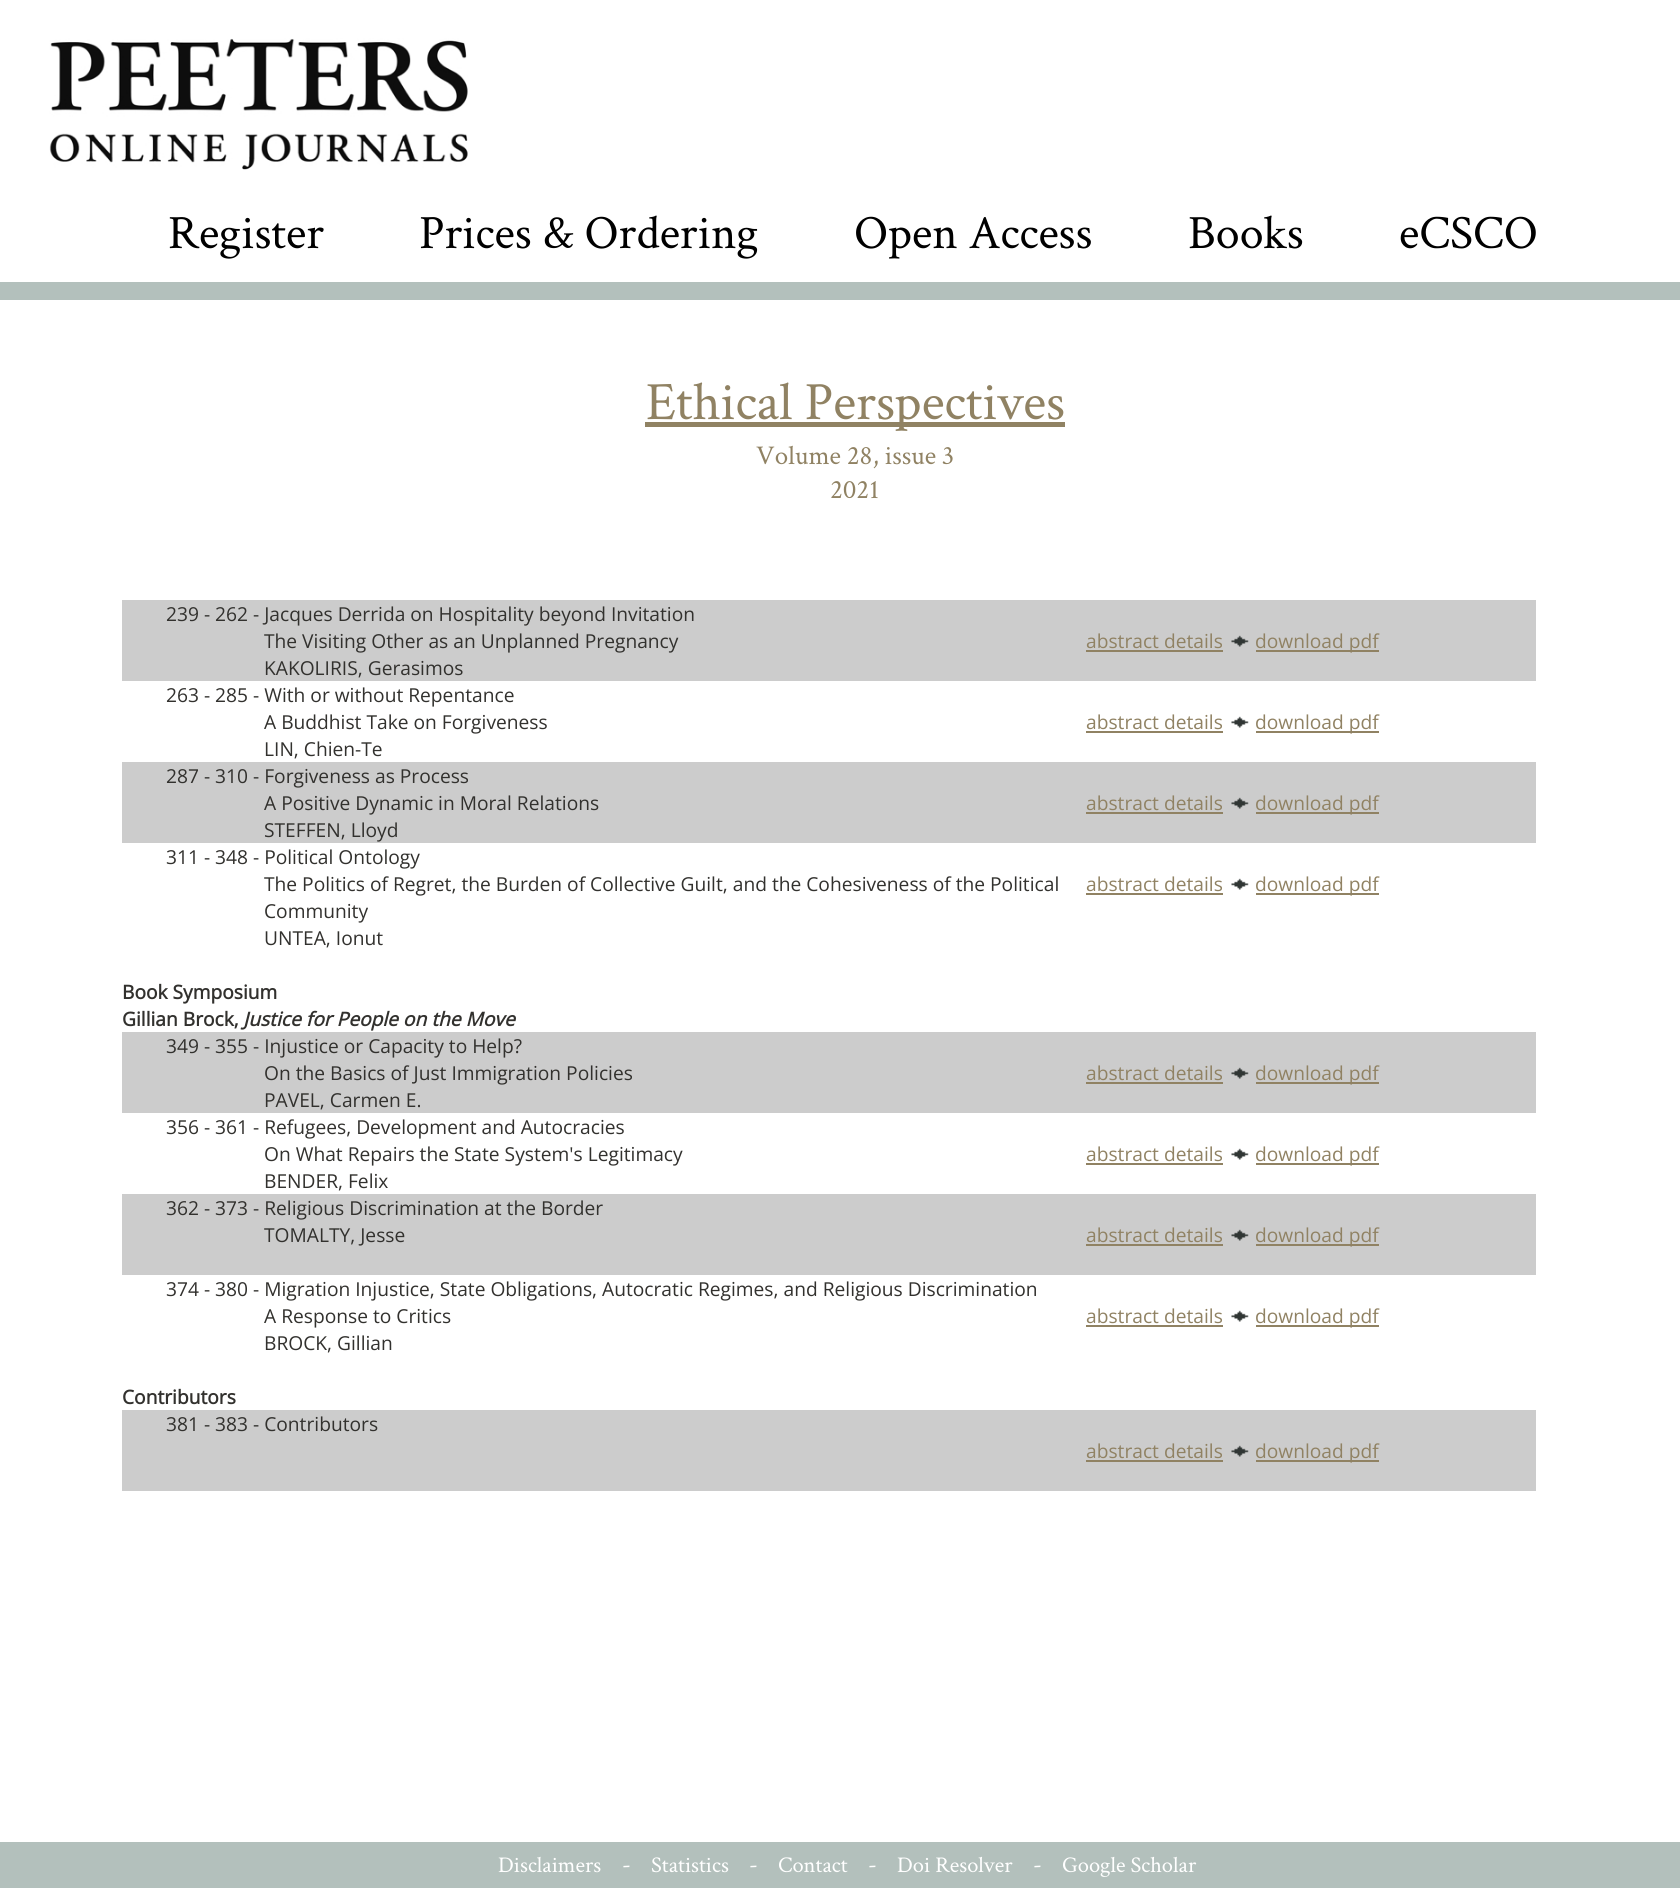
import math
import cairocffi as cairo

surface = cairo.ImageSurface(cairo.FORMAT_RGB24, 1680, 1888)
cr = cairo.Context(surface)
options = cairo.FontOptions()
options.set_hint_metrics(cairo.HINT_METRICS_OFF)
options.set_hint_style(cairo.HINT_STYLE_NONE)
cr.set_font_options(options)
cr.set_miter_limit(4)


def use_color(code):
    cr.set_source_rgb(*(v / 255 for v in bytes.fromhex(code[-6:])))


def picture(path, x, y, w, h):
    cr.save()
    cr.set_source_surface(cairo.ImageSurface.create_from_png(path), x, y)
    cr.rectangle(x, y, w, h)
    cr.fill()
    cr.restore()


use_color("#ffffff")
cr.paint()
picture("img1.png", 49, 38, 419, 132)
cr.select_font_face("Crimson Text")
cr.set_font_size(48)
use_color("#000000")
cr.move_to(168, 248)
cr.show_text("Register")
cr.move_to(419, 248)
cr.show_text("Prices & Ordering")
cr.move_to(854, 248)
cr.show_text("Open Access")
cr.move_to(1188, 248)
cr.show_text("Books")
cr.move_to(1399, 248)
cr.show_text("eCSCO")
use_color("#b3c0bc")
cr.rectangle(0, 282, 1680, 18)
cr.fill()
use_color("#908263")
cr.rectangle(645, 422, 420, 5)
cr.fill()
cr.set_font_size(54)
cr.move_to(646, 419)
cr.show_text("Ethical Perspectives")
cr.set_font_size(27)
cr.move_to(756, 464)
cr.show_text("Volume 28, issue 3")
cr.move_to(830, 498)
cr.show_text("2021")
use_color("#cccccc")
cr.rectangle(122, 600, 1414, 81)
cr.fill()
cr.select_font_face("Open Sans")
cr.set_font_size(19.2)
use_color("#32312e")
cr.move_to(166, 621)
cr.show_text("239 - 262 - Jacques Derrida on Hospitality beyond Invitation")
cr.move_to(264, 648)
cr.show_text("The Visiting Other as an Unplanned Pregnancy")
cr.move_to(264, 675)
cr.show_text("KAKOLIRIS, Gerasimos")
use_color("#908263")
cr.move_to(1086, 648)
cr.show_text("abstract details")
cr.rectangle(1086, 650, 137, 2)
cr.fill()
picture("img2.png", 1231, 635, 18, 12)
cr.rectangle(1256, 650, 123, 2)
cr.fill()
cr.move_to(1255, 648)
cr.show_text("download pdf")
use_color("#32312e")
cr.move_to(166, 702)
cr.show_text("263 - 285 - With or without Repentance")
cr.move_to(264, 729)
cr.show_text("A Buddhist Take on Forgiveness")
cr.move_to(264, 756)
cr.show_text("LIN, Chien-Te")
use_color("#908263")
cr.move_to(1086, 729)
cr.show_text("abstract details")
cr.rectangle(1086, 731, 137, 2)
cr.fill()
picture("img3.png", 1231, 716, 18, 12)
cr.rectangle(1256, 731, 123, 2)
cr.fill()
cr.move_to(1255, 729)
cr.show_text("download pdf")
use_color("#cccccc")
cr.rectangle(122, 762, 1414, 81)
cr.fill()
use_color("#32312e")
cr.move_to(166, 783)
cr.show_text("287 - 310 - Forgiveness as Process")
cr.move_to(264, 810)
cr.show_text("A Positive Dynamic in Moral Relations")
cr.move_to(264, 837)
cr.show_text("STEFFEN, Lloyd")
use_color("#908263")
cr.move_to(1086, 810)
cr.show_text("abstract details")
cr.rectangle(1086, 812, 137, 2)
cr.fill()
picture("img2.png", 1231, 797, 18, 12)
cr.rectangle(1256, 812, 123, 2)
cr.fill()
cr.move_to(1255, 810)
cr.show_text("download pdf")
use_color("#32312e")
cr.move_to(166, 864)
cr.show_text("311 - 348 - Political Ontology")
cr.move_to(264, 891)
cr.show_text("The Politics of Regret, the Burden of Collective Guilt, and the Cohesiveness of the Political")
cr.move_to(264, 918)
cr.show_text("Community")
cr.move_to(264, 945)
cr.show_text("UNTEA, Ionut")
use_color("#908263")
cr.move_to(1086, 891)
cr.show_text("abstract details")
cr.rectangle(1086, 893, 137, 2)
cr.fill()
picture("img3.png", 1231, 878, 18, 12)
cr.rectangle(1256, 893, 123, 2)
cr.fill()
cr.move_to(1255, 891)
cr.show_text("download pdf")
cr.select_font_face("Open Sans", cairo.FONT_SLANT_NORMAL, cairo.FONT_WEIGHT_BOLD)
use_color("#32312e")
cr.move_to(122, 999)
cr.show_text("Book Symposium")
cr.move_to(122, 1026)
cr.show_text("Gillian Brock,")
cr.select_font_face("Open Sans", cairo.FONT_SLANT_ITALIC, cairo.FONT_WEIGHT_BOLD)
cr.move_to(243, 1026)
cr.show_text("Justice for People on the Move")
use_color("#cccccc")
cr.rectangle(122, 1032, 1414, 81)
cr.fill()
cr.select_font_face("Open Sans")
use_color("#32312e")
cr.move_to(166, 1053)
cr.show_text("349 - 355 - Injustice or Capacity to Help?")
cr.move_to(264, 1080)
cr.show_text("On the Basics of Just Immigration Policies")
cr.move_to(264, 1107)
cr.show_text("PAVEL, Carmen E.")
use_color("#908263")
cr.move_to(1086, 1080)
cr.show_text("abstract details")
cr.rectangle(1086, 1082, 137, 2)
cr.fill()
picture("img2.png", 1231, 1067, 18, 12)
cr.rectangle(1256, 1082, 123, 2)
cr.fill()
cr.move_to(1255, 1080)
cr.show_text("download pdf")
use_color("#32312e")
cr.move_to(166, 1134)
cr.show_text("356 - 361 - Refugees, Development and Autocracies")
cr.move_to(264, 1161)
cr.show_text("On What Repairs the State System's Legitimacy")
cr.move_to(264, 1188)
cr.show_text("BENDER, Felix")
use_color("#908263")
cr.move_to(1086, 1161)
cr.show_text("abstract details")
cr.rectangle(1086, 1163, 137, 2)
cr.fill()
picture("img3.png", 1231, 1148, 18, 12)
cr.rectangle(1256, 1163, 123, 2)
cr.fill()
cr.move_to(1255, 1161)
cr.show_text("download pdf")
use_color("#cccccc")
cr.rectangle(122, 1194, 1414, 81)
cr.fill()
use_color("#32312e")
cr.move_to(166, 1215)
cr.show_text("362 - 373 - Religious Discrimination at the Border")
cr.move_to(264, 1242)
cr.show_text("TOMALTY, Jesse")
use_color("#908263")
cr.move_to(1086, 1242)
cr.show_text("abstract details")
cr.rectangle(1086, 1244, 137, 2)
cr.fill()
picture("img2.png", 1231, 1229, 18, 12)
cr.rectangle(1256, 1244, 123, 2)
cr.fill()
cr.move_to(1255, 1242)
cr.show_text("download pdf")
use_color("#32312e")
cr.move_to(166, 1296)
cr.show_text("374 - 380 - Migration Injustice, State Obligations, Autocratic Regimes, and Religious Discrimination")
cr.move_to(264, 1323)
cr.show_text("A Response to Critics")
cr.move_to(264, 1350)
cr.show_text("BROCK, Gillian")
use_color("#908263")
cr.move_to(1086, 1323)
cr.show_text("abstract details")
cr.rectangle(1086, 1325, 137, 2)
cr.fill()
picture("img3.png", 1231, 1310, 18, 12)
cr.rectangle(1256, 1325, 123, 2)
cr.fill()
cr.move_to(1255, 1323)
cr.show_text("download pdf")
cr.select_font_face("Open Sans", cairo.FONT_SLANT_NORMAL, cairo.FONT_WEIGHT_BOLD)
use_color("#32312e")
cr.move_to(122, 1404)
cr.show_text("Contributors")
use_color("#cccccc")
cr.rectangle(122, 1410, 1414, 81)
cr.fill()
cr.select_font_face("Open Sans")
use_color("#32312e")
cr.move_to(166, 1431)
cr.show_text("381 - 383 - Contributors")
use_color("#908263")
cr.move_to(1086, 1458)
cr.show_text("abstract details")
cr.rectangle(1086, 1460, 137, 2)
cr.fill()
picture("img2.png", 1231, 1445, 18, 12)
cr.rectangle(1256, 1460, 123, 2)
cr.fill()
cr.move_to(1255, 1458)
cr.show_text("download pdf")
use_color("#b3c0bc")
cr.rectangle(0, 1842, 1680, 46)
cr.fill()
cr.select_font_face("Crimson Text")
cr.set_font_size(22.5)
use_color("#ffffff")
cr.move_to(498, 1872)
cr.show_text("Disclaimers")
cr.set_font_size(24)
cr.move_to(622, 1872)
cr.show_text("-")
cr.set_font_size(22.5)
cr.move_to(651, 1872)
cr.show_text("Statistics")
cr.set_font_size(24)
cr.move_to(749, 1872)
cr.show_text("-")
cr.set_font_size(22.5)
cr.move_to(778, 1872)
cr.show_text("Contact")
cr.set_font_size(24)
cr.move_to(868, 1872)
cr.show_text("-")
cr.set_font_size(22.5)
cr.move_to(897, 1872)
cr.show_text("Doi Resolver")
cr.set_font_size(24)
cr.move_to(1033, 1872)
cr.show_text("-")
cr.set_font_size(22.5)
cr.move_to(1062, 1872)
cr.show_text("Google Scholar")
surface.write_to_png("result.png")
